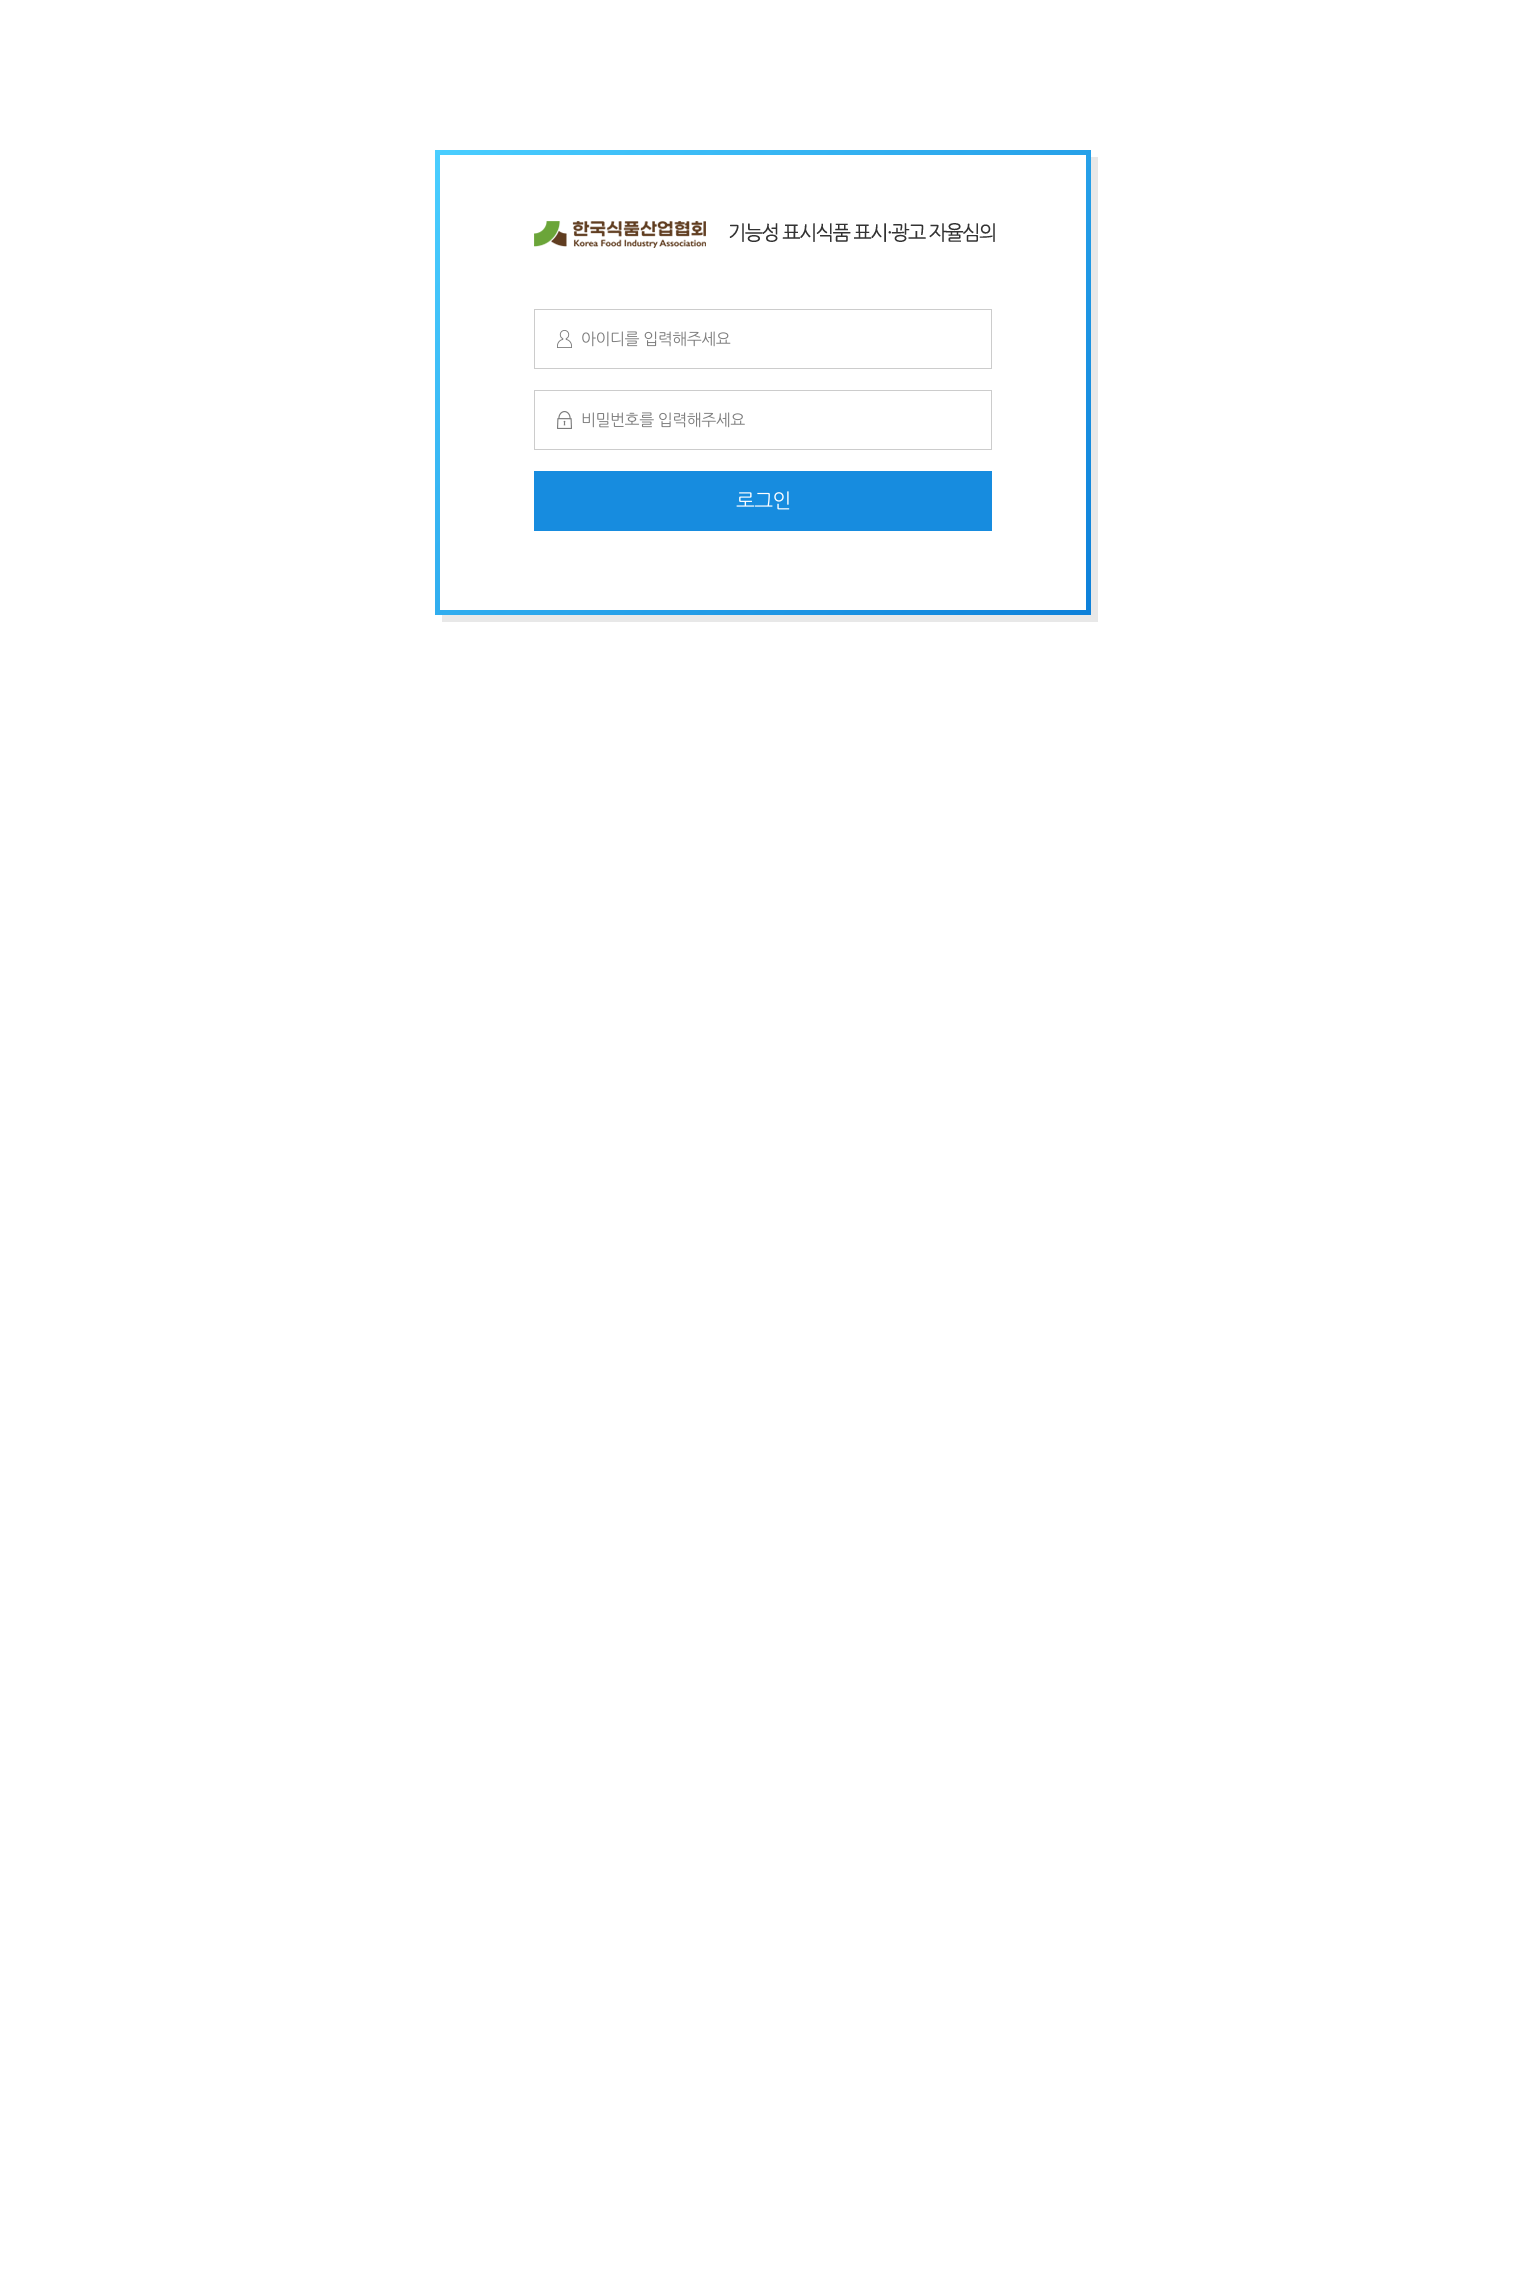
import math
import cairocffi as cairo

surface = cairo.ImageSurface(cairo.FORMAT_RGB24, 1526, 2289)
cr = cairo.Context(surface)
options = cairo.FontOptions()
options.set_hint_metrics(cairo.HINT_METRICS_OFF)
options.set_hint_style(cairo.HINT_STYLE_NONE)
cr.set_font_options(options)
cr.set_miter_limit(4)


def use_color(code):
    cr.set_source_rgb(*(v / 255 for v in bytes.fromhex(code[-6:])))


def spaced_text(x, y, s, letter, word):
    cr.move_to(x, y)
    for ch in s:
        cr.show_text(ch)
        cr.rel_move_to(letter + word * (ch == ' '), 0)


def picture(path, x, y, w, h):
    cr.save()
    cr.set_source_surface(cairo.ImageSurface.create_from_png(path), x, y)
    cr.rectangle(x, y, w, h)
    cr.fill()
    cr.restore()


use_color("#ffffff")
cr.paint()
use_color("#e8e8e8")
cr.rectangle(442, 157, 656, 465)
cr.fill()
gradient = cairo.LinearGradient(1043, 663, 483, 102)
gradient.add_color_stop_rgba(0, 0.051, 0.502, 0.851, 1)
gradient.add_color_stop_rgba(1, 0.29, 0.808, 1, 1)
cr.set_source(gradient)
cr.rectangle(435, 150, 656, 465)
cr.fill()
use_color("#ffffff")
cr.rectangle(440, 155, 646, 455)
cr.fill()
picture("img1.png", 534, 221, 461, 27)
picture("img2.png", 557, 330, 15, 18)
cr.rectangle(534.5, 309.5, 457, 59)
use_color("#cccccc")
cr.set_line_width(1)
cr.stroke()
cr.select_font_face("NanumGothic")
cr.set_font_size(16)
use_color("#7c7c7c")
spaced_text(581, 344, "아이디를 입력해주세요", -0.5, 0)
picture("img3.png", 557, 411, 15, 18)
cr.rectangle(534.5, 390.5, 457, 59)
use_color("#cccccc")
cr.stroke()
use_color("#7c7c7c")
spaced_text(581, 425, "비밀번호를 입력해주세요", -0.5, 0)
use_color("#178cdf")
cr.rectangle(534, 471, 458, 60)
cr.fill()
cr.set_font_size(20)
use_color("#ffffff")
spaced_text(736, 507, "로그인", -0.5, 0)
surface.write_to_png("result.png")
